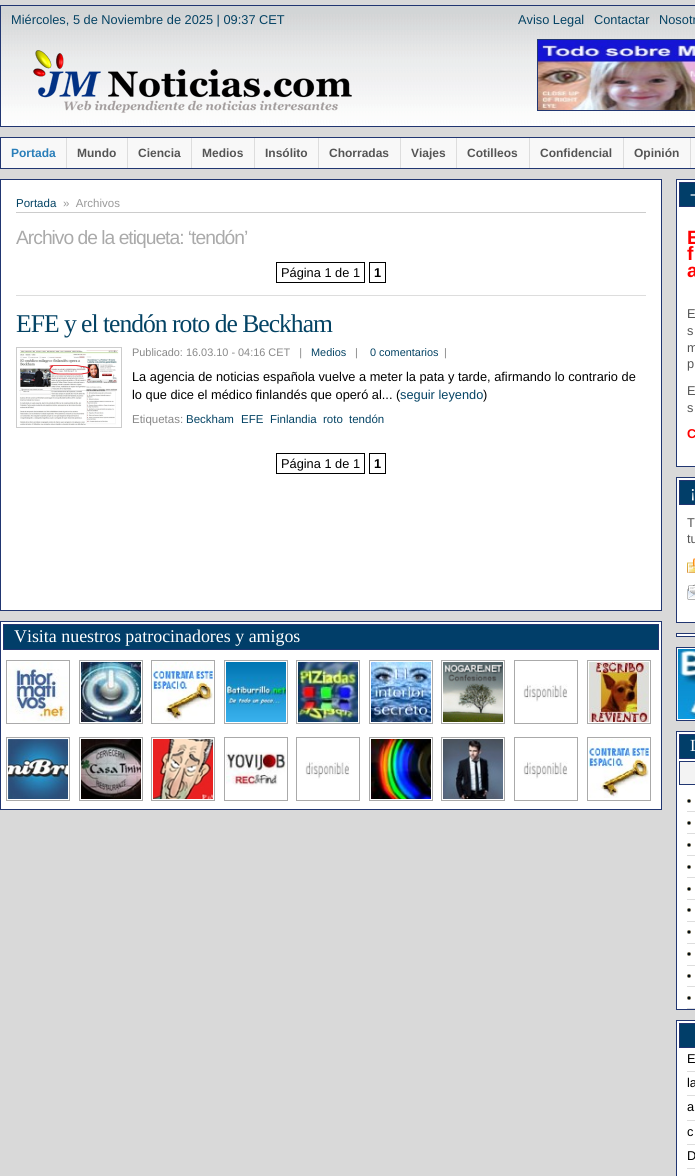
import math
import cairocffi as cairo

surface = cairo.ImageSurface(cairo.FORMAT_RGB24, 695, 1176)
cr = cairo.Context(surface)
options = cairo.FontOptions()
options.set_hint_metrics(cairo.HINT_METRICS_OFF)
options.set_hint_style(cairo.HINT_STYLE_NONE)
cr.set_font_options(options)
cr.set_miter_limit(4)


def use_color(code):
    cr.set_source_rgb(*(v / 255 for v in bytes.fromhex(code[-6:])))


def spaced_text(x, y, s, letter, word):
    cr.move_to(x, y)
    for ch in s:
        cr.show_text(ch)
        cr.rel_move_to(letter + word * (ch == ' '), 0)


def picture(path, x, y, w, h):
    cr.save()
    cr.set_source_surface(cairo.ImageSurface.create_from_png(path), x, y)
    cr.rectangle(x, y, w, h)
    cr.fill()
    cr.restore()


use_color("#d9d9d9")
cr.paint()
picture("img1.png", 1, 6, 694, 120)
cr.rectangle(0.5, 5.5, 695, 121)
use_color("#213671")
cr.set_line_width(1)
cr.stroke()
cr.select_font_face("Liberation Sans")
cr.set_font_size(12.8)
use_color("#044364")
cr.move_to(11, 24)
cr.show_text("Miércoles, 5 de Noviembre de 2025 | 09:37 CET")
cr.move_to(518, 24)
cr.show_text("Aviso Legal")
cr.move_to(594, 24)
cr.show_text("Contactar")
cr.move_to(659, 24)
cr.show_text("Nosotr")
picture("img2.png", 33, 50, 319, 63)
cr.rectangle(537.5, 39.5, 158, 71)
use_color("#213671")
cr.stroke()
picture("img3.png", 538, 40, 157, 70)
use_color("#f8f8f8")
cr.rectangle(0.5, 137.5, 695, 31)
cr.fill_preserve()
use_color("#213671")
cr.stroke()
use_color("#dddddd")
cr.rectangle(66, 138, 1, 30)
cr.fill()
cr.select_font_face("Liberation Sans", cairo.FONT_SLANT_NORMAL, cairo.FONT_WEIGHT_BOLD)
cr.set_font_size(12)
use_color("#297eb9")
cr.move_to(11, 157)
cr.show_text("Portada")
use_color("#dddddd")
cr.rectangle(127, 138, 1, 30)
cr.fill()
use_color("#555555")
cr.move_to(77, 157)
cr.show_text("Mundo")
use_color("#dddddd")
cr.rectangle(191, 138, 1, 30)
cr.fill()
use_color("#555555")
cr.move_to(138, 157)
cr.show_text("Ciencia")
use_color("#dddddd")
cr.rectangle(254, 138, 1, 30)
cr.fill()
use_color("#555555")
cr.move_to(202, 157)
cr.show_text("Medios")
use_color("#dddddd")
cr.rectangle(318, 138, 1, 30)
cr.fill()
use_color("#555555")
cr.move_to(265, 157)
cr.show_text("Insólito")
use_color("#dddddd")
cr.rectangle(400, 138, 1, 30)
cr.fill()
use_color("#555555")
cr.move_to(329, 157)
cr.show_text("Chorradas")
use_color("#dddddd")
cr.rectangle(456, 138, 1, 30)
cr.fill()
use_color("#555555")
cr.move_to(411, 157)
cr.show_text("Viajes")
use_color("#dddddd")
cr.rectangle(529, 138, 1, 30)
cr.fill()
use_color("#555555")
cr.move_to(467, 157)
cr.show_text("Cotilleos")
use_color("#dddddd")
cr.rectangle(623, 138, 1, 30)
cr.fill()
use_color("#555555")
cr.move_to(540, 157)
cr.show_text("Confidencial")
use_color("#dddddd")
cr.rectangle(690, 138, 1, 30)
cr.fill()
use_color("#555555")
cr.move_to(634, 157)
cr.show_text("Opinión")
use_color("#ffffff")
cr.rectangle(0.5, 179.5, 661, 431)
cr.fill_preserve()
use_color("#213671")
cr.stroke()
use_color("#cccccc")
cr.rectangle(16, 212, 630, 1)
cr.fill()
cr.select_font_face("Liberation Sans")
cr.set_font_size(11.5)
use_color("#044364")
cr.move_to(16, 207)
cr.show_text("Portada")
use_color("#999999")
cr.move_to(63, 207)
cr.show_text("»  Archivos")
cr.set_font_size(19.25)
use_color("#aaaaaa")
spaced_text(16, 244, "Archivo de la etiqueta: ‘tendón’", -1, 0)
cr.rectangle(276.5, 262.5, 88, 20)
use_color("#000000")
cr.stroke()
cr.set_font_size(12.8)
cr.move_to(281, 277)
cr.show_text("Página 1 de 1")
cr.rectangle(369.5, 262.5, 16, 20)
cr.stroke()
cr.select_font_face("Liberation Sans", cairo.FONT_SLANT_NORMAL, cairo.FONT_WEIGHT_BOLD)
cr.move_to(374, 277)
cr.show_text("1")
use_color("#dddddd")
cr.rectangle(16, 295, 630, 1)
cr.fill()
cr.select_font_face("Liberation Serif")
cr.set_font_size(25.6)
use_color("#044364")
spaced_text(16, 332, "EFE y el tendón roto de Beckham", -1, 0)
cr.rectangle(16.5, 347.5, 105, 80)
use_color("#cccccc")
cr.stroke()
picture("img4.png", 19, 350, 100, 75)
cr.select_font_face("Liberation Sans")
cr.set_font_size(10.9)
use_color("#888888")
cr.move_to(132, 356)
cr.show_text("Publicado: 16.03.10 - 04:16 CET   |")
use_color("#044364")
cr.move_to(311, 356)
cr.show_text("Medios")
use_color("#888888")
cr.move_to(355, 356)
cr.show_text("|")
use_color("#044364")
cr.move_to(370, 356)
cr.show_text("0 comentarios")
use_color("#888888")
cr.move_to(444, 356)
cr.show_text("|")
cr.set_font_size(12.8)
use_color("#000000")
cr.move_to(132, 381)
cr.show_text("La agencia de noticias española vuelve a meter la pata y tarde, afirmando lo contrario de")
cr.move_to(132, 399)
cr.show_text("lo que dice el médico finlandés que operó al... (")
use_color("#044364")
cr.move_to(400, 399)
cr.show_text("seguir leyendo")
use_color("#000000")
cr.move_to(483, 399)
cr.show_text(")")
cr.set_font_size(11.5)
use_color("#888888")
cr.move_to(132, 423)
cr.show_text("Etiquetas:")
use_color("#044364")
cr.move_to(186, 423)
cr.show_text("Beckham")
cr.move_to(241, 423)
cr.show_text("EFE")
cr.move_to(270, 423)
cr.show_text("Finlandia")
cr.move_to(323, 423)
cr.show_text("roto")
cr.move_to(349, 423)
cr.show_text("tendón")
cr.rectangle(276.5, 453.5, 88, 20)
use_color("#000000")
cr.stroke()
cr.set_font_size(12.8)
cr.move_to(281, 468)
cr.show_text("Página 1 de 1")
cr.rectangle(369.5, 453.5, 16, 20)
cr.stroke()
cr.select_font_face("Liberation Sans", cairo.FONT_SLANT_NORMAL, cairo.FONT_WEIGHT_BOLD)
cr.move_to(374, 468)
cr.show_text("1")
use_color("#ffffff")
cr.rectangle(0.5, 621.5, 661, 188)
cr.fill_preserve()
use_color("#213671")
cr.stroke()
use_color("#013e69")
cr.rectangle(3.5, 624.5, 655, 25)
cr.fill_preserve()
use_color("#213671")
cr.stroke()
cr.select_font_face("Liberation Serif")
cr.set_font_size(17.9)
use_color("#ffffff")
cr.move_to(14, 642)
cr.show_text("Visita nuestros patrocinadores y amigos")
cr.rectangle(6.5, 660.5, 63, 63)
use_color("#aaaaaa")
cr.stroke()
cr.rectangle(79.5, 660.5, 63, 63)
cr.stroke()
cr.rectangle(151.5, 660.5, 63, 63)
cr.stroke()
cr.rectangle(224.5, 660.5, 63, 63)
cr.stroke()
cr.rectangle(296.5, 660.5, 63, 63)
cr.stroke()
cr.rectangle(369.5, 660.5, 63, 63)
cr.stroke()
cr.rectangle(441.5, 660.5, 63, 63)
cr.stroke()
cr.rectangle(514.5, 660.5, 63, 63)
cr.stroke()
cr.rectangle(587.5, 660.5, 63, 63)
cr.stroke()
picture("img5.png", 8, 662, 60, 60)
picture("img6.png", 81, 662, 60, 60)
picture("img7.png", 153, 662, 60, 59)
picture("img8.png", 226, 662, 60, 60)
picture("img9.png", 298, 662, 60, 60)
picture("img10.png", 371, 662, 60, 60)
picture("img11.png", 443, 662, 60, 60)
picture("img12.png", 523, 684, 45, 18)
picture("img13.png", 589, 662, 60, 60)
cr.rectangle(6.5, 737.5, 63, 63)
cr.stroke()
cr.rectangle(79.5, 737.5, 63, 63)
cr.stroke()
cr.rectangle(151.5, 737.5, 63, 63)
cr.stroke()
cr.rectangle(224.5, 737.5, 63, 63)
cr.stroke()
cr.rectangle(296.5, 737.5, 63, 63)
cr.stroke()
cr.rectangle(369.5, 737.5, 63, 63)
cr.stroke()
cr.rectangle(441.5, 737.5, 63, 63)
cr.stroke()
cr.rectangle(514.5, 737.5, 63, 63)
cr.stroke()
cr.rectangle(587.5, 737.5, 63, 63)
cr.stroke()
picture("img14.png", 8, 739, 60, 60)
picture("img15.png", 81, 739, 60, 60)
picture("img16.png", 153, 739, 60, 60)
picture("img17.png", 226, 752, 60, 35)
picture("img18.png", 305, 761, 45, 18)
picture("img19.png", 371, 739, 60, 60)
picture("img20.png", 443, 739, 60, 60)
picture("img18.png", 523, 761, 45, 18)
picture("img21.png", 589, 739, 60, 59)
use_color("#ffffff")
cr.rectangle(676.5, 179.5, 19, 287)
cr.fill_preserve()
use_color("#213671")
cr.stroke()
use_color("#013e69")
cr.rectangle(679.5, 182.5, 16, 24)
cr.fill_preserve()
use_color("#213671")
cr.stroke()
cr.set_font_size(17)
use_color("#ffffff")
cr.move_to(690, 199)
cr.show_text("-")
cr.select_font_face("Liberation Sans", cairo.FONT_SLANT_NORMAL, cairo.FONT_WEIGHT_BOLD)
cr.set_font_size(19.25)
use_color("#ff0000")
cr.move_to(687, 244)
cr.show_text("E")
cr.move_to(687, 260)
cr.show_text("f")
cr.move_to(687, 277)
cr.show_text("a")
cr.select_font_face("Liberation Sans")
cr.set_font_size(12.8)
use_color("#555555")
cr.move_to(687, 318)
cr.show_text("E")
cr.move_to(687, 335)
cr.show_text("s")
cr.move_to(687, 352)
cr.show_text("m")
cr.move_to(687, 368)
cr.show_text("p")
cr.move_to(687, 395)
cr.show_text("E")
cr.move_to(687, 412)
cr.show_text("s")
cr.select_font_face("Liberation Sans", cairo.FONT_SLANT_NORMAL, cairo.FONT_WEIGHT_BOLD)
use_color("#ff0000")
cr.move_to(687, 438)
cr.show_text("C")
use_color("#ffffff")
cr.rectangle(676.5, 477.5, 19, 145)
cr.fill_preserve()
use_color("#213671")
cr.stroke()
use_color("#013e69")
cr.rectangle(679.5, 480.5, 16, 24)
cr.fill_preserve()
use_color("#213671")
cr.stroke()
cr.select_font_face("Liberation Serif")
cr.set_font_size(17)
use_color("#ffffff")
cr.move_to(690, 497)
cr.show_text("¡")
cr.select_font_face("Liberation Sans")
cr.set_font_size(12.8)
use_color("#555555")
cr.move_to(687, 527)
cr.show_text("T")
cr.move_to(687, 543)
cr.show_text("tu")
picture("img22.png", 687, 558, 8, 15)
picture("img23.png", 687, 584, 8, 16)
use_color("#ffffff")
cr.rectangle(676.5, 633.5, 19, 3)
cr.fill_preserve()
use_color("#213671")
cr.stroke()
use_color("#ffffff")
cr.rectangle(676.5, 647.5, 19, 73)
cr.fill_preserve()
use_color("#213671")
cr.stroke()
picture("img24.png", 678, 649, 17, 70)
use_color("#ffffff")
cr.rectangle(676.5, 731.5, 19, 278)
cr.fill_preserve()
use_color("#213671")
cr.stroke()
use_color("#013e69")
cr.rectangle(679.5, 734.5, 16, 24)
cr.fill_preserve()
use_color("#213671")
cr.stroke()
cr.select_font_face("Liberation Serif")
cr.set_font_size(17)
use_color("#ffffff")
cr.move_to(690, 751)
cr.show_text("L")
use_color("#f3f3f3")
cr.rectangle(679.5, 761.5, 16, 23)
cr.fill_preserve()
use_color("#213671")
cr.stroke()
picture("img25.png", 687, 799, 4, 4)
use_color("#dddddd")
cr.rectangle(687, 811, 8, 1)
cr.fill()
picture("img25.png", 687, 821, 4, 4)
cr.rectangle(687, 833, 8, 1)
cr.fill()
picture("img25.png", 687, 843, 4, 4)
cr.rectangle(687, 855, 8, 1)
cr.fill()
picture("img25.png", 687, 865, 4, 4)
cr.rectangle(687, 877, 8, 1)
cr.fill()
picture("img25.png", 687, 887, 4, 4)
cr.rectangle(687, 899, 8, 1)
cr.fill()
picture("img25.png", 687, 908, 4, 4)
cr.rectangle(687, 921, 8, 1)
cr.fill()
picture("img25.png", 687, 930, 4, 4)
cr.rectangle(687, 943, 8, 1)
cr.fill()
picture("img25.png", 687, 952, 4, 4)
cr.rectangle(687, 965, 8, 1)
cr.fill()
picture("img25.png", 687, 974, 4, 4)
cr.rectangle(687, 986, 8, 1)
cr.fill()
picture("img25.png", 687, 996, 4, 4)
cr.rectangle(687, 1008, 8, 1)
cr.fill()
use_color("#ffffff")
cr.rectangle(676.5, 1020.5, 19, 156)
cr.fill_preserve()
use_color("#213671")
cr.stroke()
use_color("#013e69")
cr.rectangle(679.5, 1023.5, 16, 24)
cr.fill_preserve()
use_color("#213671")
cr.stroke()
use_color("#dddddd")
cr.rectangle(687, 1071, 8, 1)
cr.fill()
cr.select_font_face("Liberation Sans")
cr.set_font_size(12.8)
use_color("#000000")
cr.move_to(687, 1063)
cr.show_text("E")
use_color("#dddddd")
cr.rectangle(687, 1095, 8, 1)
cr.fill()
use_color("#000000")
cr.move_to(687, 1087)
cr.show_text("la")
use_color("#dddddd")
cr.rectangle(687, 1120, 8, 1)
cr.fill()
use_color("#000000")
cr.move_to(687, 1111)
cr.show_text("a")
use_color("#dddddd")
cr.rectangle(687, 1144, 8, 1)
cr.fill()
use_color("#000000")
cr.move_to(687, 1136)
cr.show_text("c")
use_color("#dddddd")
cr.rectangle(687, 1168, 8, 1)
cr.fill()
use_color("#000000")
cr.move_to(687, 1160)
cr.show_text("D")
surface.write_to_png("result.png")
